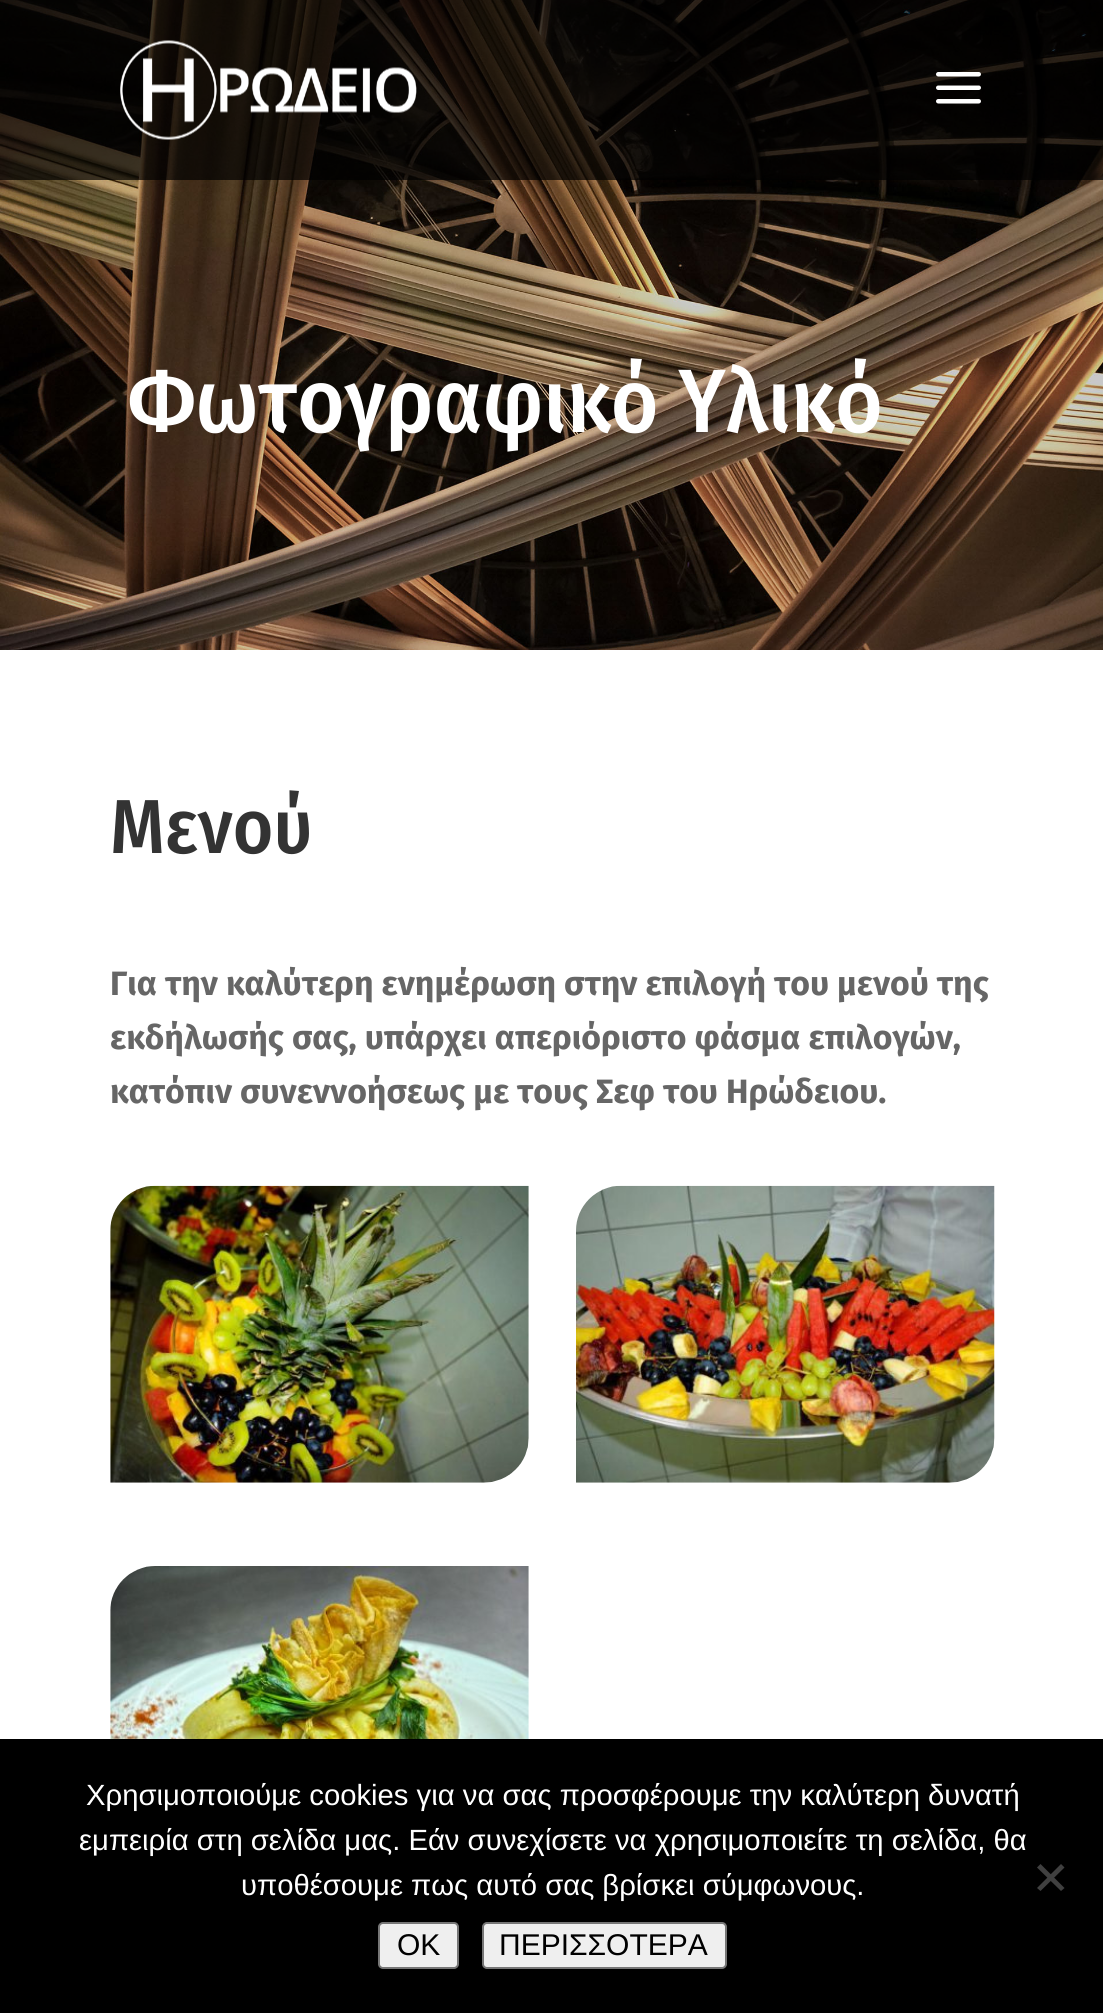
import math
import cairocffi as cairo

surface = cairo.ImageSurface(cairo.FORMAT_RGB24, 1103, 2013)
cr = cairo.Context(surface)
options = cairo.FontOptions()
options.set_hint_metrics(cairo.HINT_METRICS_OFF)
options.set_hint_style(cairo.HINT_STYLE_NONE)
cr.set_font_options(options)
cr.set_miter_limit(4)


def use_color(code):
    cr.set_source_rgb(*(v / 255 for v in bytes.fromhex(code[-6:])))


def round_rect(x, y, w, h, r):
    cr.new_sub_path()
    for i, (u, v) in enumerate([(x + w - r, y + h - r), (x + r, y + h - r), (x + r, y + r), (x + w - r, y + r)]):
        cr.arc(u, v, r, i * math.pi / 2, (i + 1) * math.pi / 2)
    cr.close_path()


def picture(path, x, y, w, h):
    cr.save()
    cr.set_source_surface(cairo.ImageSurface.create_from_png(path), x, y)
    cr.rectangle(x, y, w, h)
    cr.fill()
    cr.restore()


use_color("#ffffff")
cr.paint()
picture("img3.png", 0, 0, 1103, 650)
cr.set_source_rgba(0, 0, 0, 0.7)
cr.rectangle(0, 0, 1103, 180)
cr.fill()
picture("img1.png", 120, 40, 297, 100)
picture("img2.png", 936, 72, 45, 32)
cr.select_font_face("Fira Sans Condensed Medium")
cr.set_font_size(90)
use_color("#ffffff")
cr.move_to(128, 432)
cr.show_text("Φωτογραφικό Υλικό")
cr.set_font_size(76.5)
use_color("#333333")
cr.move_to(110, 853)
cr.show_text("Μενού")
cr.select_font_face("Fira Sans", cairo.FONT_SLANT_NORMAL, cairo.FONT_WEIGHT_BOLD)
cr.set_font_size(33.75)
use_color("#666666")
cr.move_to(110, 995)
cr.show_text("Για την καλύτερη ενημέρωση στην επιλογή του μενού της")
cr.move_to(110, 1049)
cr.show_text("εκδήλωσής σας, υπάρχει απεριόριστο φάσμα επιλογών,")
cr.move_to(110, 1103)
cr.show_text("κατόπιν συνεννοήσεως με τους Σεφ του Ηρώδειου.")
picture("img4.png", 110, 1185, 419, 298)
picture("img5.png", 576, 1185, 419, 298)
picture("img6.png", 110, 1566, 419, 173)
use_color("#000000")
cr.rectangle(0, 1739, 1103, 274)
cr.fill()
cr.select_font_face("Liberation Sans")
cr.set_font_size(29.25)
use_color("#ffffff")
cr.move_to(86, 1805)
cr.show_text("Χρησιμοποιούμε cookies για να σας προσφέρουμε την καλύτερη δυνατή")
cr.move_to(79, 1850)
cr.show_text("εμπειρία στη σελίδα μας. Εάν συνεχίσετε να χρησιμοποιείτε τη σελίδα, θα")
cr.move_to(241, 1895)
cr.show_text("υποθέσουμε πως αυτό σας βρίσκει σύμφωνους.")
use_color("#404040")
cr.new_path()
cr.move_to(1061, 1864)
cr.line_to(1064.5, 1867.5)
cr.line_to(1040.5, 1891)
cr.line_to(1037, 1888)
cr.close_path()
cr.fill()
cr.new_path()
cr.move_to(1037, 1867.5)
cr.line_to(1040.5, 1864)
cr.line_to(1064.5, 1888)
cr.line_to(1061, 1891)
cr.close_path()
cr.fill()
use_color("#efefef")
round_rect(379, 1923, 79, 45, 4)
cr.fill_preserve()
use_color("#767676")
cr.stroke()
cr.set_font_size(30)
use_color("#000000")
cr.move_to(397, 1955)
cr.show_text("OK")
use_color("#efefef")
round_rect(483, 1923, 243, 45, 4)
cr.fill_preserve()
use_color("#767676")
cr.stroke()
use_color("#000000")
cr.move_to(499, 1955)
cr.show_text("ΠΕΡΙΣΣΟΤΕΡΑ")
surface.write_to_png("result.png")
